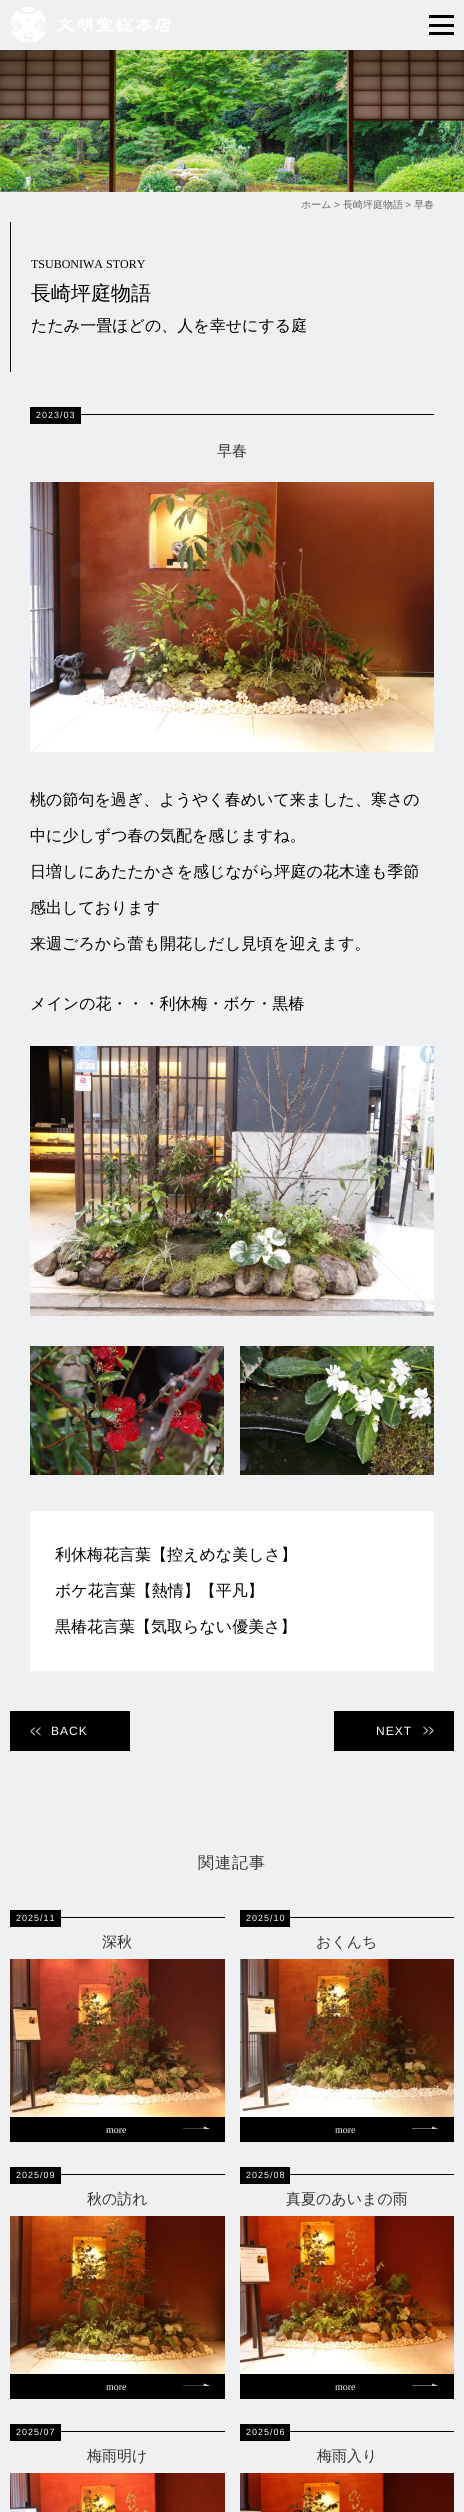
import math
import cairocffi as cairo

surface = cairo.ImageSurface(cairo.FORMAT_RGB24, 464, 2512)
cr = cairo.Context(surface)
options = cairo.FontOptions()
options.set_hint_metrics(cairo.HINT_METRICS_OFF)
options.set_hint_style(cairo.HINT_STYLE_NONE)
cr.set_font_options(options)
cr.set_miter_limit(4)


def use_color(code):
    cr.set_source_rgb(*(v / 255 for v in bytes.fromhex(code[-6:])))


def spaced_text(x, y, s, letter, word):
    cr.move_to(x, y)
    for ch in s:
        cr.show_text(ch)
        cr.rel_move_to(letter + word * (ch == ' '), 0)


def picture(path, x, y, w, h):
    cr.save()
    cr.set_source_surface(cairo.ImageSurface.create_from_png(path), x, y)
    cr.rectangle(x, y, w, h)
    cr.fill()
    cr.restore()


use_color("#eef0f2")
cr.paint()
picture("img1.png", 10, 7, 37, 36)
picture("img2.png", 57, 17, 114, 16)
use_color("#000000")
cr.rectangle(429, 15, 25, 3)
cr.fill()
cr.rectangle(429, 24, 25, 3)
cr.fill()
cr.rectangle(429, 32, 25, 3)
cr.fill()
picture("img3.png", 0, 50, 464, 142)
cr.select_font_face("WenQuanYi Zen Hei Medium")
cr.set_font_size(10)
use_color("#666666")
cr.move_to(301, 208)
cr.show_text("ホーム")
cr.select_font_face("Liberation Sans")
cr.move_to(334, 208)
cr.show_text(">")
cr.select_font_face("WenQuanYi Zen Hei Medium")
cr.move_to(343, 208)
cr.show_text("長崎坪庭物語")
cr.select_font_face("Liberation Sans")
cr.move_to(405, 208)
cr.show_text(">")
cr.select_font_face("WenQuanYi Zen Hei Medium")
cr.move_to(414, 208)
cr.show_text("早春")
use_color("#111111")
cr.rectangle(10, 222, 1, 150)
cr.fill()
cr.select_font_face("Liberation Serif")
cr.set_font_size(12)
use_color("#000000")
cr.move_to(31, 268)
cr.show_text("TSUBONIWA STORY")
cr.select_font_face("WenQuanYi Zen Hei Medium")
cr.set_font_size(20)
cr.move_to(31, 300)
cr.show_text("長崎坪庭物語")
cr.set_font_size(16)
cr.move_to(31, 331)
cr.show_text("たたみ一畳ほどの、人を幸せにする庭")
cr.rectangle(30, 407, 51, 17)
cr.fill()
cr.select_font_face("Liberation Sans")
cr.set_font_size(9)
use_color("#ffffff")
spaced_text(36, 418, "2023/03", 1, 0)
use_color("#000000")
cr.rectangle(81, 414, 353, 1)
cr.fill()
cr.select_font_face("WenQuanYi Zen Hei Medium")
cr.set_font_size(15)
use_color("#333631")
cr.move_to(217, 456)
cr.show_text("早春")
picture("img4.png", 30, 482, 404, 270)
cr.set_font_size(16)
use_color("#000000")
cr.move_to(30, 805)
cr.show_text("桃の節句を過ぎ、ようやく春めいて来ました、寒さの")
cr.move_to(30, 841)
cr.show_text("中に少しずつ春の気配を感じますね。")
cr.move_to(30, 877)
cr.show_text("日増しにあたたかさを感じながら坪庭の花木達も季節")
cr.move_to(30, 913)
cr.show_text("感出しております")
cr.move_to(30, 949)
cr.show_text("来週ごろから蕾も開花しだし見頃を迎えます。")
cr.move_to(30, 1009)
cr.show_text("メインの花・・・利休梅・ボケ・黒椿")
picture("img5.png", 30, 1046, 404, 270)
picture("img6.png", 30, 1346, 194, 129)
picture("img7.png", 240, 1346, 194, 129)
use_color("#ffffff")
cr.rectangle(30, 1511, 404, 160)
cr.fill()
use_color("#000000")
cr.move_to(55, 1560)
cr.show_text("利休梅花言葉【控えめな美しさ】")
cr.move_to(55, 1596)
cr.show_text("ボケ花言葉【熱情】【平凡】")
cr.move_to(55, 1632)
cr.show_text("黒椿花言葉【気取らない優美さ】")
cr.rectangle(10, 1711, 120, 40)
cr.fill()
picture("img8.png", 30, 1727, 11, 9)
cr.select_font_face("Liberation Sans")
cr.set_font_size(12)
use_color("#ffffff")
spaced_text(51, 1735, "BACK", 1, 0)
use_color("#000000")
cr.rectangle(334, 1711, 120, 40)
cr.fill()
use_color("#ffffff")
spaced_text(376, 1735, "NEXT", 1, 0)
picture("img9.png", 423, 1726, 11, 9)
cr.select_font_face("WenQuanYi Zen Hei Medium")
cr.set_font_size(16)
use_color("#333631")
spaced_text(198, 1868, "関連記事", 1, 0)
use_color("#000000")
cr.rectangle(10, 1910, 51, 17)
cr.fill()
cr.select_font_face("Liberation Sans")
cr.set_font_size(9)
use_color("#ffffff")
spaced_text(16, 1921, "2025/11", 1, 0)
use_color("#000000")
cr.rectangle(61, 1917, 164, 1)
cr.fill()
cr.select_font_face("WenQuanYi Zen Hei Medium")
cr.set_font_size(15)
use_color("#333631")
cr.move_to(102, 1947)
cr.show_text("深秋")
picture("img10.png", 10, 1959, 215, 158)
use_color("#000000")
cr.rectangle(10, 2117, 215, 25)
cr.fill()
picture("img11.png", 183, 2126, 27, 3)
cr.select_font_face("Liberation Serif")
cr.set_font_size(10)
use_color("#ffffff")
cr.move_to(106, 2133)
cr.show_text("more")
use_color("#000000")
cr.rectangle(240, 1910, 50, 17)
cr.fill()
cr.select_font_face("Liberation Sans")
cr.set_font_size(9)
use_color("#ffffff")
spaced_text(246, 1921, "2025/10", 1, 0)
use_color("#000000")
cr.rectangle(290, 1917, 164, 1)
cr.fill()
cr.select_font_face("WenQuanYi Zen Hei Medium")
cr.set_font_size(15)
use_color("#333631")
cr.move_to(316, 1947)
cr.show_text("おくんち")
picture("img12.png", 240, 1959, 214, 158)
use_color("#000000")
cr.rectangle(240, 2117, 214, 25)
cr.fill()
picture("img13.png", 412, 2126, 26, 3)
cr.select_font_face("Liberation Serif")
cr.set_font_size(10)
use_color("#ffffff")
cr.move_to(335, 2133)
cr.show_text("more")
use_color("#000000")
cr.rectangle(10, 2167, 51, 17)
cr.fill()
cr.select_font_face("Liberation Sans")
cr.set_font_size(9)
use_color("#ffffff")
spaced_text(16, 2178, "2025/09", 1, 0)
use_color("#000000")
cr.rectangle(61, 2174, 164, 1)
cr.fill()
cr.select_font_face("WenQuanYi Zen Hei Medium")
cr.set_font_size(15)
use_color("#333631")
cr.move_to(87, 2204)
cr.show_text("秋の訪れ")
picture("img14.png", 10, 2216, 215, 158)
use_color("#000000")
cr.rectangle(10, 2374, 215, 25)
cr.fill()
picture("img11.png", 183, 2383, 27, 3)
cr.select_font_face("Liberation Serif")
cr.set_font_size(10)
use_color("#ffffff")
cr.move_to(106, 2390)
cr.show_text("more")
use_color("#000000")
cr.rectangle(240, 2167, 50, 17)
cr.fill()
cr.select_font_face("Liberation Sans")
cr.set_font_size(9)
use_color("#ffffff")
spaced_text(246, 2178, "2025/08", 1, 0)
use_color("#000000")
cr.rectangle(290, 2174, 164, 1)
cr.fill()
cr.select_font_face("WenQuanYi Zen Hei Medium")
cr.set_font_size(15)
use_color("#333631")
cr.move_to(286, 2204)
cr.show_text("真夏のあいまの雨")
picture("img15.png", 240, 2216, 214, 158)
use_color("#000000")
cr.rectangle(240, 2374, 214, 25)
cr.fill()
picture("img13.png", 412, 2383, 26, 3)
cr.select_font_face("Liberation Serif")
cr.set_font_size(10)
use_color("#ffffff")
cr.move_to(335, 2390)
cr.show_text("more")
use_color("#000000")
cr.rectangle(10, 2424, 51, 17)
cr.fill()
cr.select_font_face("Liberation Sans")
cr.set_font_size(9)
use_color("#ffffff")
spaced_text(16, 2435, "2025/07", 1, 0)
use_color("#000000")
cr.rectangle(61, 2431, 164, 1)
cr.fill()
cr.select_font_face("WenQuanYi Zen Hei Medium")
cr.set_font_size(15)
use_color("#333631")
cr.move_to(87, 2461)
cr.show_text("梅雨明け")
picture("img16.png", 10, 2473, 215, 39)
use_color("#000000")
cr.rectangle(240, 2424, 50, 17)
cr.fill()
cr.select_font_face("Liberation Sans")
cr.set_font_size(9)
use_color("#ffffff")
spaced_text(246, 2435, "2025/06", 1, 0)
use_color("#000000")
cr.rectangle(290, 2431, 164, 1)
cr.fill()
cr.select_font_face("WenQuanYi Zen Hei Medium")
cr.set_font_size(15)
use_color("#333631")
cr.move_to(317, 2461)
cr.show_text("梅雨入り")
picture("img17.png", 240, 2473, 214, 39)
surface.write_to_png("result.png")
